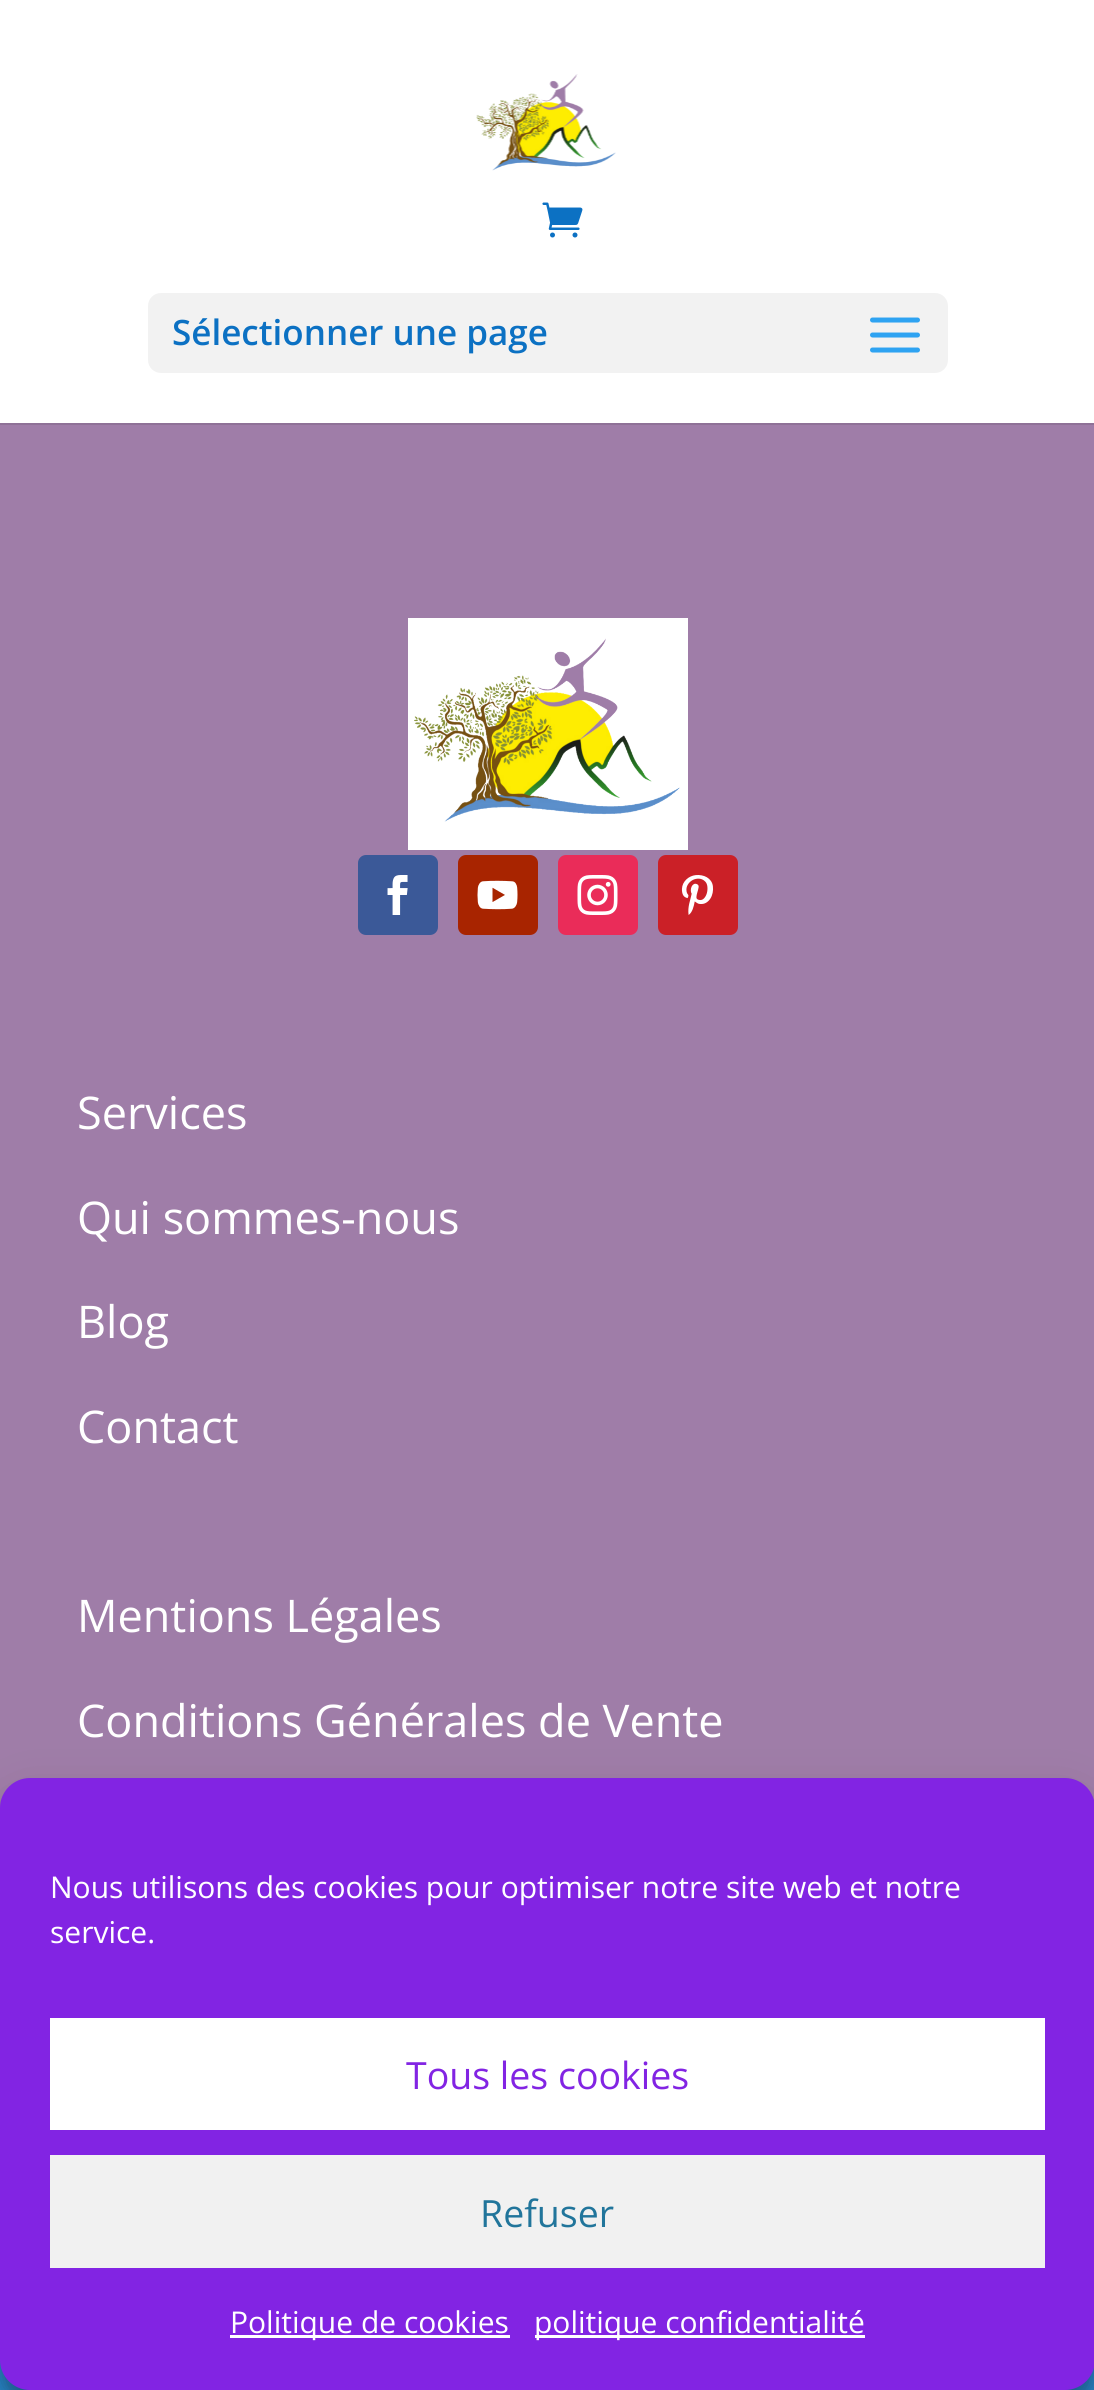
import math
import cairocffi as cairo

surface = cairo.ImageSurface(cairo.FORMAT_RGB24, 1094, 2390)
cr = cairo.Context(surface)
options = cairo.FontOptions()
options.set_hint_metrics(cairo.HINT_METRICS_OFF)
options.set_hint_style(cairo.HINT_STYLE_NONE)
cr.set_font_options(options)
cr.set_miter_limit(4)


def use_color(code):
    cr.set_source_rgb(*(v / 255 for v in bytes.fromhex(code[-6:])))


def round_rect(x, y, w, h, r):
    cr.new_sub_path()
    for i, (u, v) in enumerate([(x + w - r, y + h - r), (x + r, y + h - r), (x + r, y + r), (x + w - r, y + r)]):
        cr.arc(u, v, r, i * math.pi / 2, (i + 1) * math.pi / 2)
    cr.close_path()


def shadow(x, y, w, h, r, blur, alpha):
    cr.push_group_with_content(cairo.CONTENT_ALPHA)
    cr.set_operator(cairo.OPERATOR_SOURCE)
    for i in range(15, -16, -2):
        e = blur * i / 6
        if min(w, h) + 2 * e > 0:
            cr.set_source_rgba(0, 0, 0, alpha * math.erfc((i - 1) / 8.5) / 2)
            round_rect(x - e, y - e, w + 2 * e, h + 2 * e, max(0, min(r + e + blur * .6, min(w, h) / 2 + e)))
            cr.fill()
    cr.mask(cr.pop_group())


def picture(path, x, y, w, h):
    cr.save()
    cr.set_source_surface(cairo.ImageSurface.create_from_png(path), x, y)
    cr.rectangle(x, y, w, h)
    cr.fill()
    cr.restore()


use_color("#9f7da8")
cr.paint()
use_color("#8f7197")
cr.rectangle(0, 423, 1094, 2)
cr.fill()
use_color("#ffffff")
cr.rectangle(0, 0, 1094, 423)
cr.fill()
picture("img1.png", 476, 74, 140, 97)
picture("img2.png", 542, 202, 41, 36)
use_color("#f2f2f2")
round_rect(148, 293, 800, 80, 13)
cr.fill()
cr.select_font_face("Open Sans SemiBold")
cr.set_font_size(35)
use_color("#0c71c3")
cr.move_to(172, 345)
cr.show_text("Sélectionner une page")
picture("img3.png", 870, 317, 50, 36)
use_color("#ffffff")
cr.rectangle(408, 618, 280, 232)
cr.fill()
picture("img4.png", 414, 638, 266, 184)
use_color("#3b5998")
round_rect(358, 855, 80, 80, 8)
cr.fill()
picture("img5.png", 387, 875, 21, 40)
use_color("#a82400")
round_rect(458, 855, 80, 80, 8)
cr.fill()
picture("img6.png", 477, 880, 41, 30)
use_color("#ea2c59")
round_rect(558, 855, 80, 80, 8)
cr.fill()
picture("img7.png", 577, 875, 41, 40)
use_color("#cb2027")
round_rect(658, 855, 80, 80, 8)
cr.fill()
picture("img8.png", 681, 875, 33, 40)
cr.select_font_face("Open Sans")
cr.set_font_size(45)
use_color("#ffffff")
cr.move_to(77, 1129)
cr.show_text("Services")
cr.move_to(77, 1234)
cr.show_text("Qui sommes-nous")
cr.move_to(77, 1338)
cr.show_text("Blog")
cr.move_to(77, 1443)
cr.show_text("Contact")
cr.move_to(77, 1632)
cr.show_text("Mentions Légales")
cr.move_to(77, 1737)
cr.show_text("Conditions Générales de Vente")
gradient = cairo.LinearGradient(547, 2183, 548, 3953)
gradient.add_color_stop_rgba(0, 0.169, 0.529, 0.855, 1)
gradient.add_color_stop_rgba(1, 0.161, 0.769, 0.663, 1)
cr.set_source(gradient)
cr.rectangle(0, 2360, 1094, 30)
cr.fill()
use_color("#000000")
shadow(0, 1793, 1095, 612, 30, 7.5, 0.23)
shadow(0, 1803, 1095, 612, 30, 25, 0.19)
use_color("#8224e3")
round_rect(0, 1778, 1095, 612, 30)
cr.fill()
cr.set_font_size(30)
use_color("#ffffff")
cr.move_to(50, 1898)
cr.show_text("Nous utilisons des cookies pour optimiser notre site web et notre")
cr.move_to(50, 1943)
cr.show_text("service.")
cr.rectangle(50, 2018, 995, 112)
cr.fill()
cr.set_font_size(37.5)
use_color("#8224e3")
cr.move_to(406, 2089)
cr.show_text("Tous les cookies")
use_color("#f1f1f1")
cr.rectangle(50, 2155, 995, 113)
cr.fill()
use_color("#21759b")
cr.move_to(480, 2227)
cr.show_text("Refuser")
use_color("#ffffff")
cr.rectangle(230, 2335, 280, 3)
cr.fill()
cr.set_font_size(30)
cr.move_to(230, 2333)
cr.show_text("Politique de cookies")
cr.rectangle(535, 2335, 330, 3)
cr.fill()
cr.move_to(534, 2333)
cr.show_text("politique confidentialité")
surface.write_to_png("result.png")
